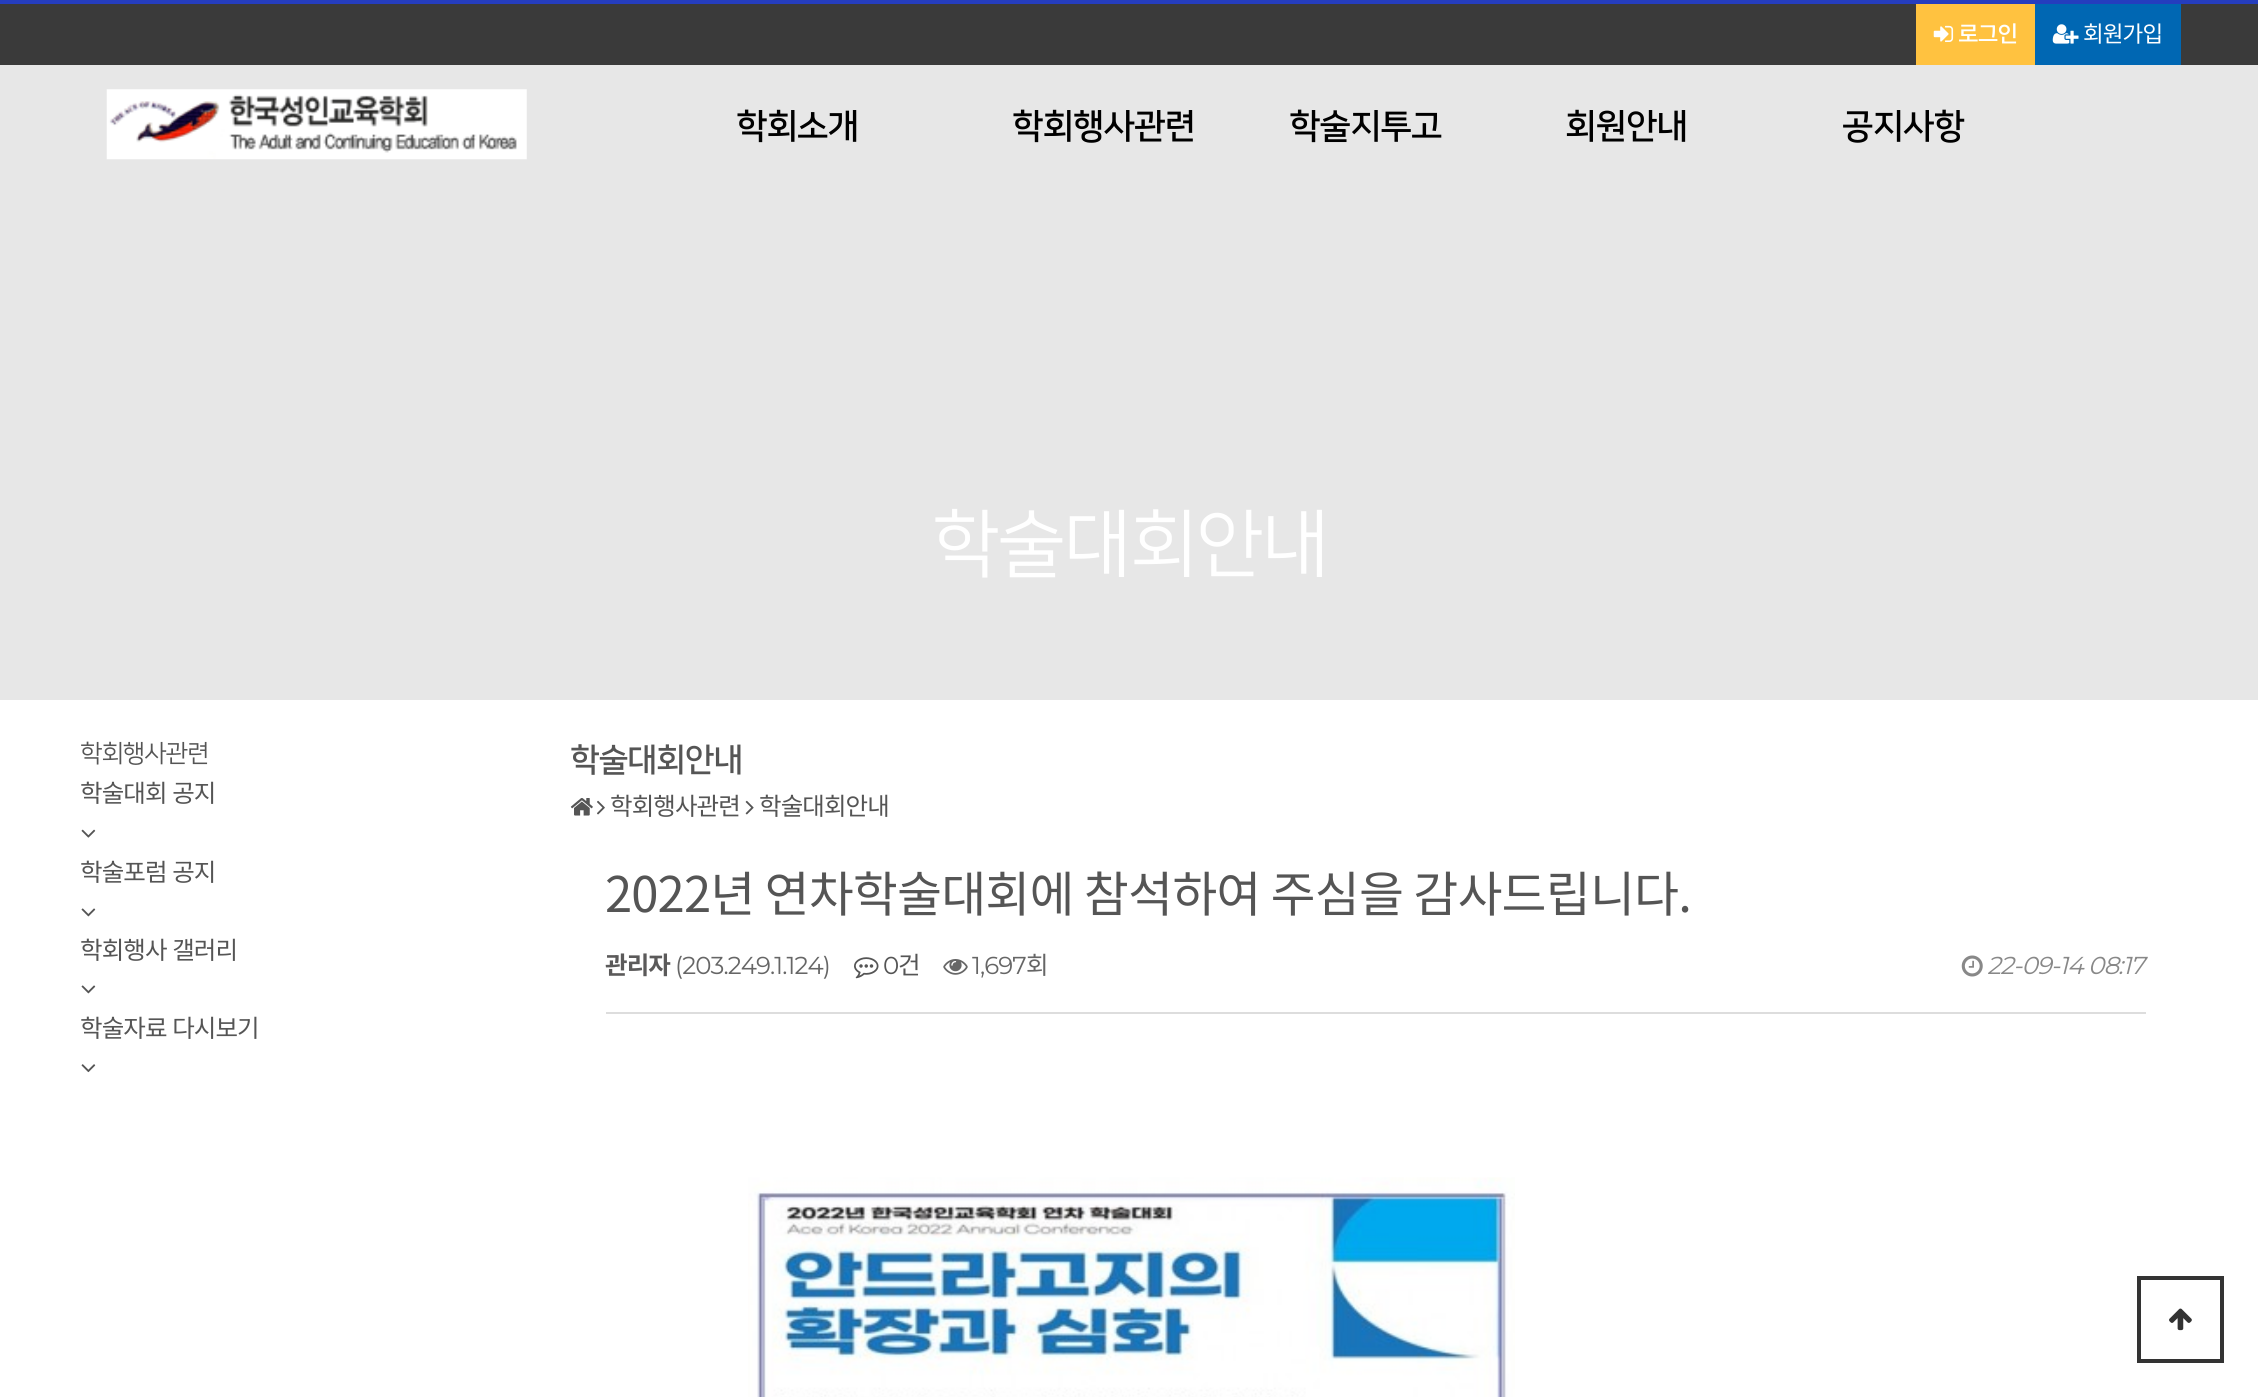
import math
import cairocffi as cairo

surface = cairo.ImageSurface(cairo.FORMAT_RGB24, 2258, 1397)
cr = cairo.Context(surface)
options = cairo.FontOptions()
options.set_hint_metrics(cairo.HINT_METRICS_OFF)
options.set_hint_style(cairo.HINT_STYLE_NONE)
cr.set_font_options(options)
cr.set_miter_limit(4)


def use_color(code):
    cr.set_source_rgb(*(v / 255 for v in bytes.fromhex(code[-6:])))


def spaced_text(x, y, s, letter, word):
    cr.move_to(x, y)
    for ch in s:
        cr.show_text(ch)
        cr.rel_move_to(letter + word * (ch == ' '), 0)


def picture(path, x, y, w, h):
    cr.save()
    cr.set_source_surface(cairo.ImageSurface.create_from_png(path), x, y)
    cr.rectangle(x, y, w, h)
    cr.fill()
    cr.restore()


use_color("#e7e7e7")
cr.paint()
use_color("#253dbe")
cr.rectangle(0, 0, 2258, 4)
cr.fill()
use_color("#3a3a3a")
cr.rectangle(0, 4, 2258, 61)
cr.fill()
use_color("#ffc240")
cr.rectangle(1916, 4, 119, 61)
cr.fill()
picture("img1.png", 1933, 25, 21, 17)
cr.select_font_face("Noto Sans KR Medium")
cr.set_font_size(22.5)
use_color("#ffffff")
spaced_text(1958, 42, "로그인", -0.9, 0)
use_color("#0067b3")
cr.rectangle(2035, 4, 146, 61)
cr.fill()
picture("img2.png", 2052, 24, 27, 20)
cr.select_font_face("Noto Sans KR")
use_color("#ffffff")
spaced_text(2083, 42, "회원가입", -0.9, 0)
picture("img3.png", 106, 89, 421, 71)
cr.select_font_face("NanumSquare", cairo.FONT_SLANT_NORMAL, cairo.FONT_WEIGHT_BOLD)
cr.set_font_size(34.5)
use_color("#000000")
spaced_text(736, 137, "학회소개", -0.9, 0)
spaced_text(1012, 137, "학회행사관련", -0.9, 0)
spaced_text(1289, 137, "학술지투고", -0.9, 0)
spaced_text(1565, 137, "회원안내", -0.9, 0)
spaced_text(1842, 137, "공지사항", -0.9, 0)
cr.select_font_face("NanumSquare")
cr.set_font_size(73.5)
use_color("#ffffff")
spaced_text(932, 567, "학술대회안내", -0.9, 0)
cr.rectangle(0, 700, 2258, 697)
cr.fill()
cr.set_font_size(24.5)
use_color("#555555")
spaced_text(80, 761, "학회행사관련", -0.9, 0)
cr.select_font_face("Noto Sans KR")
spaced_text(80, 802, "학술대회 공지", -0.9, 1)
picture("img4.png", 81, 829, 15, 9)
spaced_text(80, 881, "학술포럼 공지", -0.9, 1)
picture("img5.png", 81, 908, 15, 9)
spaced_text(80, 959, "학회행사 갤러리", -0.9, 1)
picture("img5.png", 81, 985, 15, 9)
spaced_text(80, 1037, "학술자료 다시보기", -0.9, 1)
picture("img6.png", 81, 1064, 15, 9)
cr.select_font_face("NanumSquare", cairo.FONT_SLANT_NORMAL, cairo.FONT_WEIGHT_BOLD)
cr.set_font_size(32.5)
spaced_text(570, 770, "학술대회안내", -0.9, 0)
picture("img7.png", 570, 798, 23, 18)
picture("img8.png", 597, 800, 8, 15)
cr.select_font_face("Noto Sans KR")
cr.set_font_size(24.5)
spaced_text(610, 815, "학회행사관련", -0.9, 0)
picture("img9.png", 745, 800, 9, 15)
spaced_text(759, 815, "학술대회안내", -0.9, 0)
cr.select_font_face("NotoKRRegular")
cr.set_font_size(49)
spaced_text(605, 912, "2022년 연차학술대회에 참석하여 주심을 감사드립니다.", -0.9, 0)
use_color("#dddddd")
cr.rectangle(606, 1012, 1540, 2)
cr.fill()
cr.select_font_face("Noto Sans KR", cairo.FONT_SLANT_NORMAL, cairo.FONT_WEIGHT_BOLD)
cr.set_font_size(24.5)
use_color("#5b5a5a")
spaced_text(605, 974, "관리자", -0.9, 0)
cr.select_font_face("Montserrat")
use_color("#666666")
spaced_text(675, 974, "(203.249.1.124)", -0.9, 0)
picture("img10.png", 854, 957, 25, 22)
use_color("#555555")
spaced_text(883, 974, "0", -0.9, 0)
cr.select_font_face("Noto Sans KR")
spaced_text(898, 974, "건", -0.9, 0)
picture("img11.png", 943, 959, 25, 16)
cr.select_font_face("Montserrat")
use_color("#666666")
spaced_text(972, 974, "1,697", -0.9, 0)
cr.select_font_face("Noto Sans KR")
spaced_text(1026, 974, "회", -0.9, 0)
picture("img12.png", 1961, 955, 22, 22)
cr.select_font_face("Montserrat", cairo.FONT_SLANT_ITALIC)
use_color("#888888")
spaced_text(1987, 974, "22-09-14 08:17", -0.9, 0)
picture("img13.png", 748, 1177, 767, 220)
cr.rectangle(2139, 1278, 83, 83)
use_color("#333333")
cr.set_line_width(4)
cr.stroke()
picture("img14.png", 2169, 1308, 23, 23)
surface.write_to_png("result.png")
